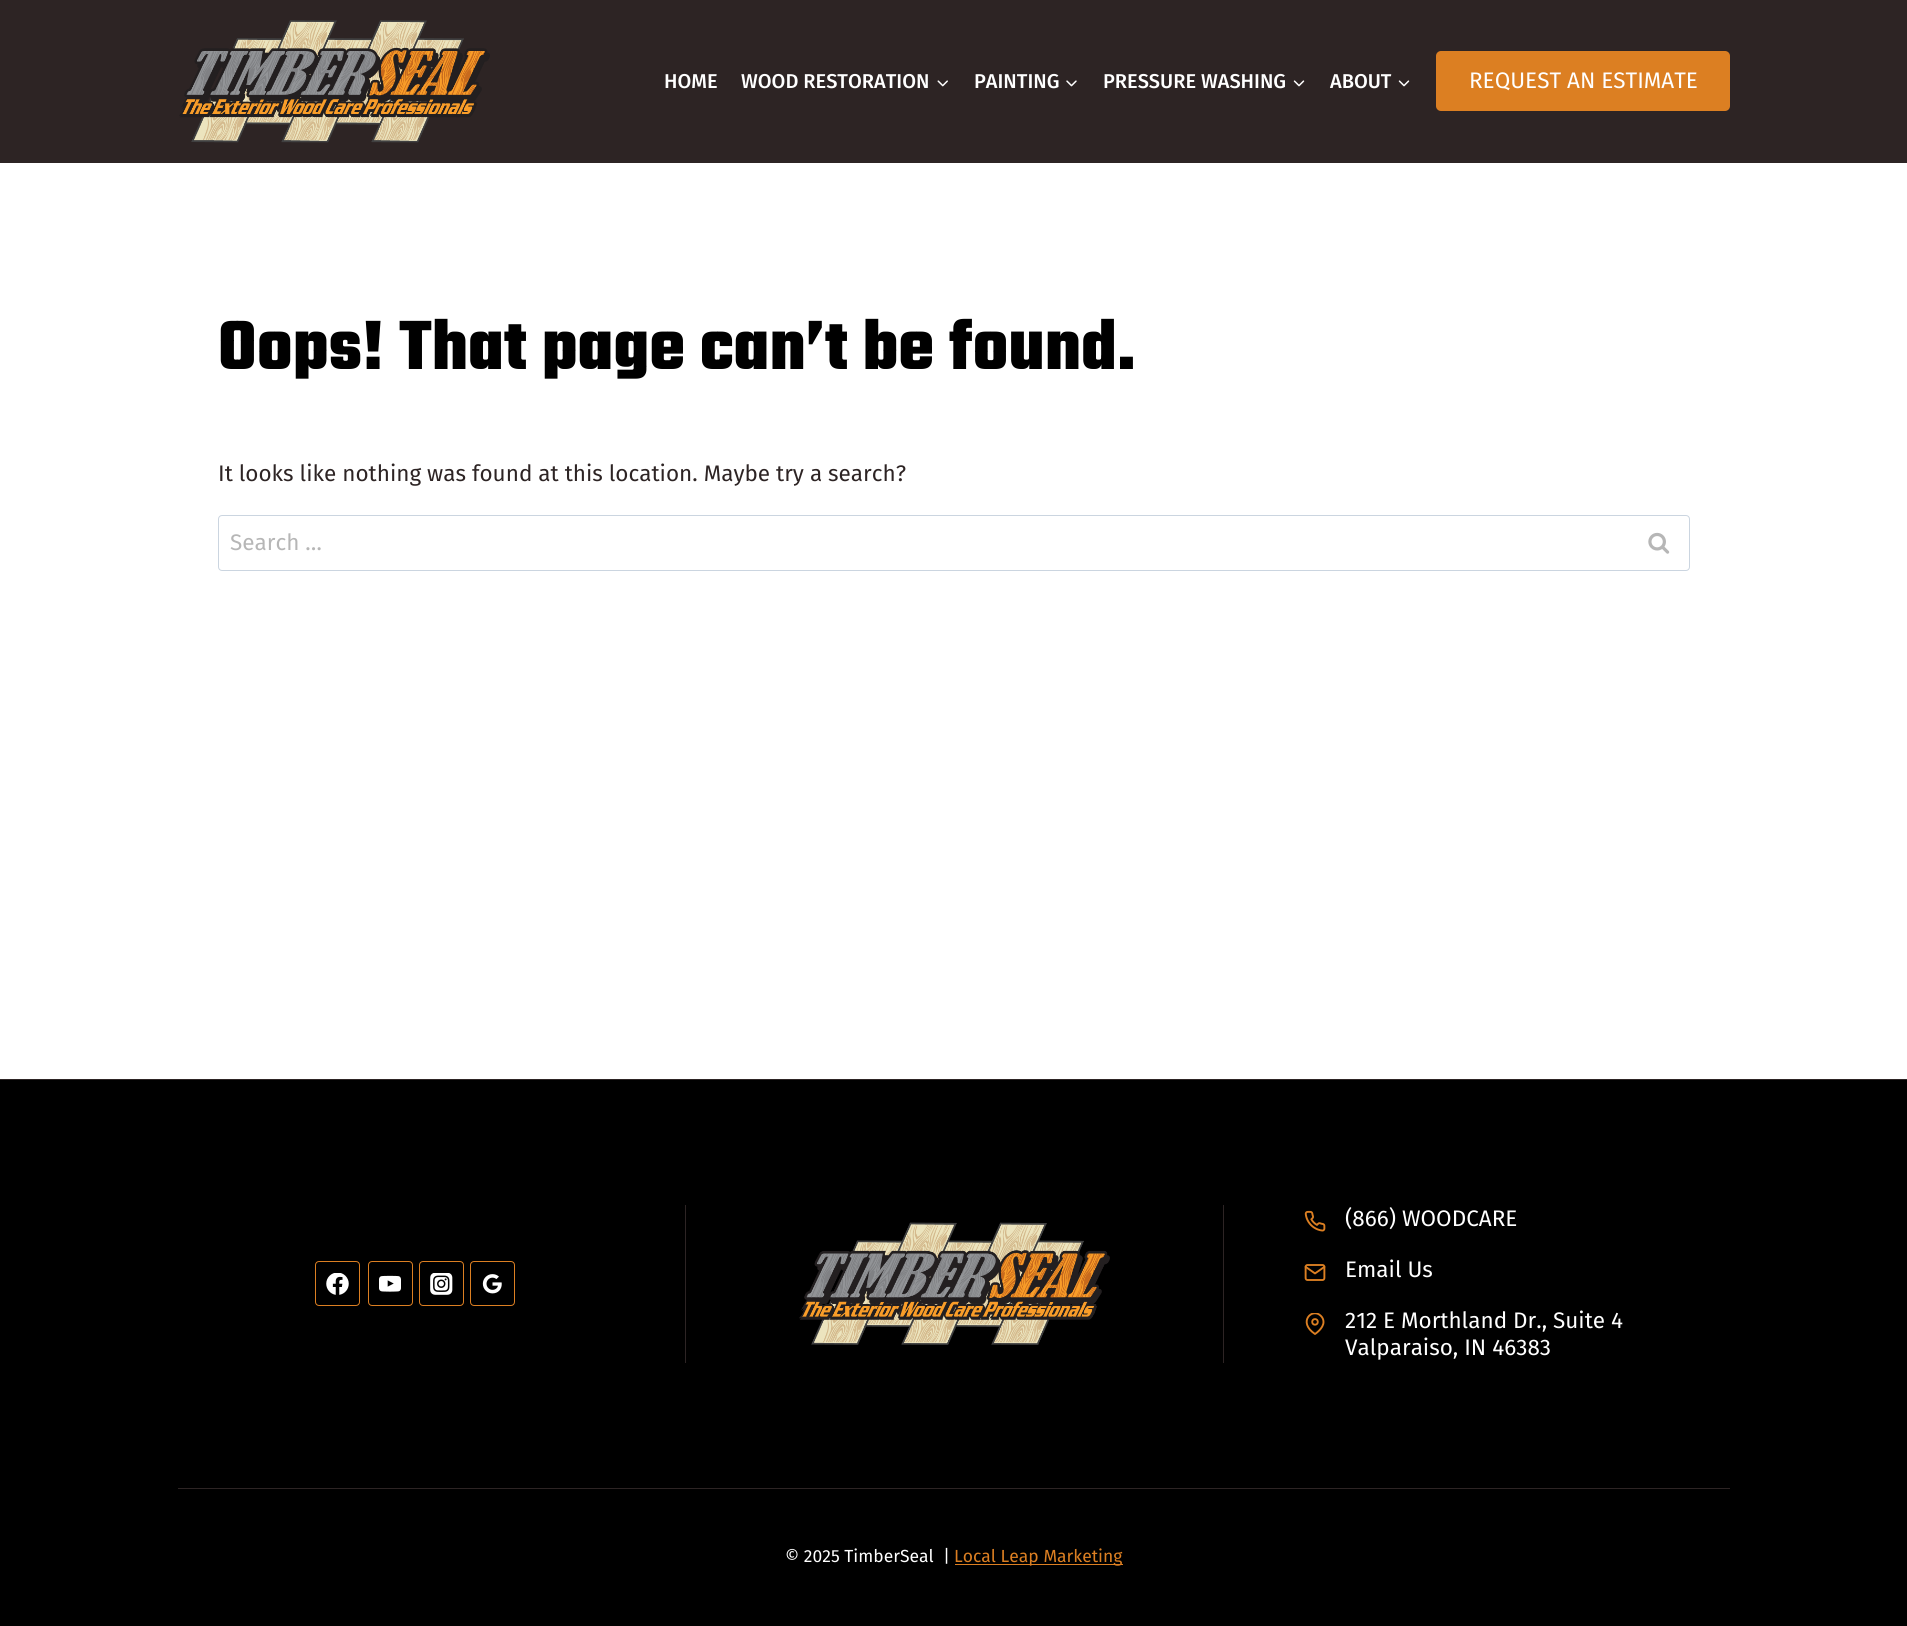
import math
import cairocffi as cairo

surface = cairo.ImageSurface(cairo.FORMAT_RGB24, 1907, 1626)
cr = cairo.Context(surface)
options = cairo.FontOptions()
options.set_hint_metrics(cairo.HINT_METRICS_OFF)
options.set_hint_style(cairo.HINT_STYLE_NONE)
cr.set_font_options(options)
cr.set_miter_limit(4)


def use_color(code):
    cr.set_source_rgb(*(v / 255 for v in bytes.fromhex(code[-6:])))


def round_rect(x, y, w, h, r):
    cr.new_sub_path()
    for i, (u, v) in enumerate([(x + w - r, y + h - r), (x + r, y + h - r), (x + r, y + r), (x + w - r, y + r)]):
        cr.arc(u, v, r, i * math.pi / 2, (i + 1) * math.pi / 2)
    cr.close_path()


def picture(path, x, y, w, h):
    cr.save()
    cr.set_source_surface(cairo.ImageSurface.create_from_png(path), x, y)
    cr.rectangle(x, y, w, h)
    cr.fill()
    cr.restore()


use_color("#ffffff")
cr.paint()
use_color("#2d2424")
cr.rectangle(0, 0, 1907, 163)
cr.fill()
picture("img1.png", 179, 20, 311, 123)
cr.select_font_face("Fira Sans Medium")
cr.set_font_size(20)
use_color("#ffffff")
cr.move_to(664, 88)
cr.show_text("HOME")
cr.move_to(741, 88)
cr.show_text("WOOD RESTORATION")
picture("img2.png", 937, 80, 11, 7)
cr.move_to(974, 88)
cr.show_text("PAINTING")
picture("img3.png", 1066, 80, 11, 7)
cr.move_to(1103, 88)
cr.show_text("PRESSURE WASHING")
picture("img4.png", 1293, 80, 12, 7)
cr.move_to(1330, 88)
cr.show_text("ABOUT")
picture("img4.png", 1398, 80, 12, 7)
use_color("#dc7f22")
round_rect(1436, 51, 294, 60, 5)
cr.fill()
cr.select_font_face("Fira Sans")
cr.set_font_size(22.5)
use_color("#ffffff")
cr.move_to(1469, 88)
cr.show_text("REQUEST AN ESTIMATE")
cr.select_font_face("Teko", cairo.FONT_SLANT_NORMAL, cairo.FONT_WEIGHT_BOLD)
cr.set_font_size(75)
use_color("#000000")
cr.move_to(218, 369)
cr.show_text("Oops! That page can’t be found.")
cr.select_font_face("Fira Sans")
cr.set_font_size(22.5)
use_color("#2d2424")
cr.move_to(218, 481)
cr.show_text("It looks like nothing was found at this location. Maybe try a search?")
round_rect(218.5, 515.5, 1471, 55, 3.5)
use_color("#cbd5e0")
cr.set_line_width(1)
cr.stroke()
use_color("#b6b6b6")
cr.move_to(230, 550)
cr.show_text("Search …")
picture("img5.png", 1648, 532, 22, 22)
use_color("#000000")
cr.rectangle(0, 1080, 1907, 546)
cr.fill()
use_color("#2d2424")
cr.rectangle(0, 1079, 1907, 1)
cr.fill()
round_rect(315.5, 1261.5, 44, 44, 3.5)
use_color("#dc7f22")
cr.stroke()
picture("img6.png", 326, 1273, 23, 22)
round_rect(368.5, 1261.5, 44, 44, 3.5)
cr.stroke()
picture("img7.png", 379, 1275, 22, 17)
round_rect(419.5, 1261.5, 44, 44, 3.5)
cr.stroke()
picture("img8.png", 430, 1273, 23, 22)
round_rect(470.5, 1261.5, 44, 44, 3.5)
cr.stroke()
picture("img9.png", 482, 1274, 20, 20)
use_color("#2d2424")
cr.rectangle(685, 1205, 1, 158)
cr.fill()
picture("img10.png", 799, 1222, 311, 123)
cr.rectangle(1223, 1205, 1, 158)
cr.fill()
picture("img11.png", 1304, 1210, 22, 22)
use_color("#ffffff")
cr.move_to(1345, 1226)
cr.show_text("(866) WOODCARE")
picture("img12.png", 1304, 1264, 22, 17)
cr.move_to(1345, 1277)
cr.show_text("Email Us")
cr.save()
cr.rectangle(1304, 1313, 22, 22)
cr.clip()
cr.new_path()
cr.move_to(1323.5, 1322)
cr.curve_to(1323.5, 1328.5, 1315, 1334, 1315, 1334)
cr.curve_to(1297, 1322, 1312.5, 1307, 1321, 1316)
cr.curve_to(1322.5, 1317.5, 1323.5, 1319.5, 1323.5, 1322)
cr.close_path()
use_color("#dc7f22")
cr.set_line_width(1.9)
cr.set_line_cap(cairo.LINE_CAP_ROUND)
cr.set_line_join(cairo.LINE_JOIN_ROUND)
cr.stroke()
cr.restore()
cr.arc(1315, 1321.9, 2.8, 0, 2 * math.pi)
use_color("#dc7f22")
cr.set_line_width(1.9)
cr.stroke()
use_color("#ffffff")
cr.move_to(1345, 1328)
cr.show_text("212 E Morthland Dr., Suite 4")
cr.move_to(1345, 1355)
cr.show_text("Valparaiso, IN 46383")
use_color("#2d2424")
cr.rectangle(178, 1488, 1552, 1)
cr.fill()
cr.set_font_size(17.5)
use_color("#ffffff")
cr.move_to(785, 1562)
cr.show_text("© 2025 TimberSeal  |")
use_color("#dc7f22")
cr.rectangle(955, 1564, 168, 1)
cr.fill()
cr.move_to(954, 1562)
cr.show_text("Local Leap Marketing")
surface.write_to_png("result.png")
